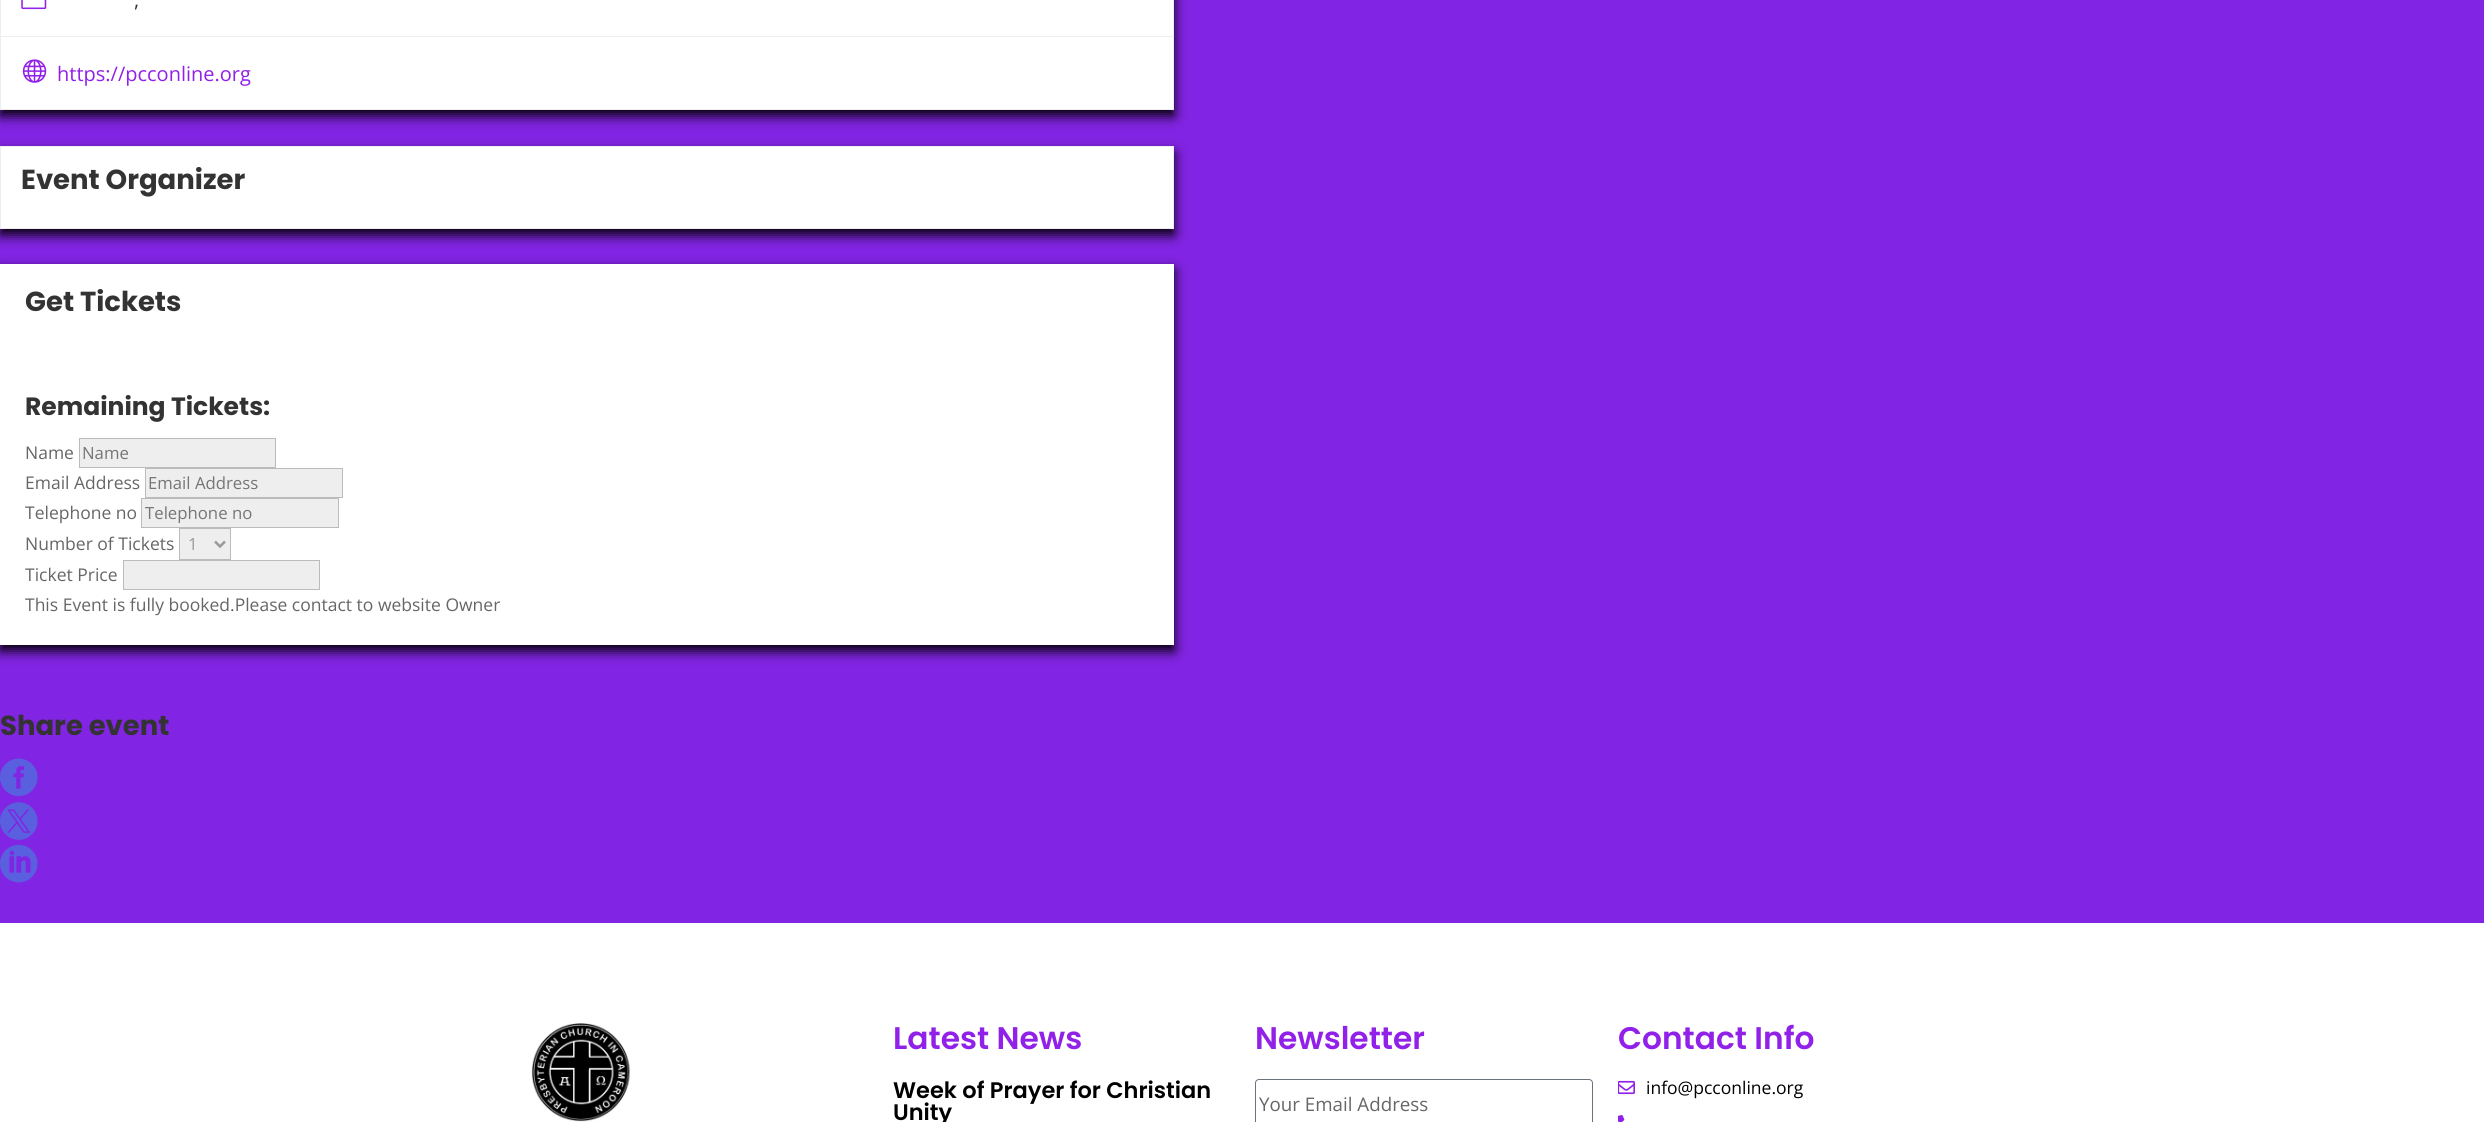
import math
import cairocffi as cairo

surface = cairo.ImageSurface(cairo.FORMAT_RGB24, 2484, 1122)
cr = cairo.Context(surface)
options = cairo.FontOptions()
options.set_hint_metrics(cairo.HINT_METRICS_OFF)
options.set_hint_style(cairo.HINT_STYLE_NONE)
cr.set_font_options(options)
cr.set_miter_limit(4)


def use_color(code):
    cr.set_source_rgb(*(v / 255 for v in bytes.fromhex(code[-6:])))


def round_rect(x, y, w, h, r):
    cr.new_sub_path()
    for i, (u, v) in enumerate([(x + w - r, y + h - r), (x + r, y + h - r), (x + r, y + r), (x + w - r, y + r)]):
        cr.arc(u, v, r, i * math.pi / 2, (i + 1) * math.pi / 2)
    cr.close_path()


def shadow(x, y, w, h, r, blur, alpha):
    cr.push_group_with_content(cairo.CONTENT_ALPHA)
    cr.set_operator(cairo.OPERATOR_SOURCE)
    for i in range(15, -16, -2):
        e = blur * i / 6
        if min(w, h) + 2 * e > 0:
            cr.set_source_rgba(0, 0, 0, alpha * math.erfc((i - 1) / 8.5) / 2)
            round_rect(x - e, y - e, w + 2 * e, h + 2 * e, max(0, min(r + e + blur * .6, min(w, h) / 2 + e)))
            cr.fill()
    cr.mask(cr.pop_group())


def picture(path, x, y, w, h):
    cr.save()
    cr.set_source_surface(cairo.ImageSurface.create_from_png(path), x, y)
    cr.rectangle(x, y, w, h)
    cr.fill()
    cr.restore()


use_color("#8224e3")
cr.paint()
use_color("#000000")
shadow(0, -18, 1174, 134, 0, 6, 1)
use_color("#ffffff")
cr.rectangle(1, 0, 1172, 109)
cr.fill()
picture("img1.png", 21, 0, 26, 10)
cr.select_font_face("Open Sans")
cr.set_font_size(20)
use_color("#333333")
cr.move_to(134, 7)
cr.show_text(",")
use_color("#eeeeee")
cr.rectangle(0, 36, 1174, 1)
cr.fill()
cr.rectangle(1173, 0, 1, 110)
cr.fill()
cr.rectangle(0, 109, 1174, 1)
cr.fill()
cr.rectangle(0, 0, 1, 110)
cr.fill()
picture("img2.png", 22, 59, 25, 24)
use_color("#9120e8")
cr.move_to(57, 81)
cr.show_text("https://pcconline.org")
use_color("#000000")
shadow(0, 153, 1174, 82, 0, 6, 1)
use_color("#ffffff")
cr.rectangle(1, 147, 1172, 81)
cr.fill()
use_color("#eeeeee")
cr.rectangle(0, 146, 1174, 1)
cr.fill()
cr.rectangle(1173, 146, 1, 83)
cr.fill()
cr.rectangle(0, 228, 1174, 1)
cr.fill()
cr.rectangle(0, 146, 1, 83)
cr.fill()
cr.select_font_face("Poppins", cairo.FONT_SLANT_NORMAL, cairo.FONT_WEIGHT_BOLD)
cr.set_font_size(27.5)
use_color("#333333")
cr.move_to(21, 189)
cr.show_text("Event Organizer")
use_color("#000000")
shadow(0, 270, 1174, 381, 0, 6, 1)
use_color("#ffffff")
cr.rectangle(0, 264, 1174, 381)
cr.fill()
use_color("#333333")
cr.move_to(25, 311)
cr.show_text("Get Tickets")
cr.set_font_size(25)
cr.move_to(25, 415)
cr.show_text("Remaining Tickets:")
cr.select_font_face("Open Sans")
cr.set_font_size(17.5)
use_color("#666666")
cr.move_to(25, 459)
cr.show_text("Name")
use_color("#eeeeee")
cr.rectangle(79.5, 438.5, 196, 29)
cr.fill_preserve()
use_color("#bbbbbb")
cr.set_line_width(1)
cr.stroke()
cr.set_font_size(16.75)
use_color("#757575")
cr.move_to(82, 459)
cr.show_text("Name")
cr.set_font_size(17.5)
use_color("#666666")
cr.move_to(25, 489)
cr.show_text("Email Address")
use_color("#eeeeee")
cr.rectangle(145.5, 468.5, 197, 29)
cr.fill_preserve()
use_color("#bbbbbb")
cr.stroke()
cr.set_font_size(16.75)
use_color("#757575")
cr.move_to(148, 489)
cr.show_text("Email Address")
cr.set_font_size(17.5)
use_color("#666666")
cr.move_to(25, 519)
cr.show_text("Telephone no")
use_color("#eeeeee")
cr.rectangle(141.5, 498.5, 197, 29)
cr.fill_preserve()
use_color("#bbbbbb")
cr.stroke()
cr.set_font_size(16.75)
use_color("#757575")
cr.move_to(145, 519)
cr.show_text("Telephone no")
cr.set_font_size(17.5)
use_color("#666666")
cr.move_to(25, 550)
cr.show_text("Number of Tickets")
use_color("#eeeeee")
cr.rectangle(179.5, 528.5, 51, 31)
cr.fill_preserve()
use_color("#bbbbbb")
cr.stroke()
cr.new_path()
cr.move_to(215, 541.5)
cr.line_to(220, 546.5)
cr.line_to(225, 541.5)
use_color("#999999")
cr.set_line_width(2.5)
cr.stroke()
cr.set_font_size(16.75)
cr.move_to(188, 550)
cr.show_text("1")
cr.set_font_size(17.5)
use_color("#666666")
cr.move_to(25, 581)
cr.show_text("Ticket Price")
use_color("#eeeeee")
cr.rectangle(123.5, 560.5, 196, 29)
cr.fill_preserve()
use_color("#bbbbbb")
cr.set_line_width(1)
cr.stroke()
use_color("#666666")
cr.move_to(25, 611)
cr.show_text("This Event is fully booked.Please contact to website Owner")
cr.select_font_face("Poppins", cairo.FONT_SLANT_NORMAL, cairo.FONT_WEIGHT_BOLD)
cr.set_font_size(27.5)
use_color("#333333")
cr.move_to(0, 735)
cr.show_text("Share event")
picture("img3.png", 0, 758, 38, 38)
picture("img4.png", 0, 802, 38, 38)
picture("img5.png", 0, 844, 38, 39)
use_color("#ffffff")
cr.rectangle(0, 923, 2484, 199)
cr.fill()
picture("img6.png", 531, 1023, 99, 99)
cr.select_font_face("Poppins SemiBold")
cr.set_font_size(31.25)
use_color("#9120e8")
cr.move_to(893, 1049)
cr.show_text("Latest News")
cr.set_font_size(22.5)
use_color("#000000")
cr.move_to(893, 1098)
cr.show_text("Week of Prayer for Christian")
cr.move_to(893, 1120)
cr.show_text("Unity")
cr.set_font_size(31.25)
use_color("#9120e8")
cr.move_to(1255, 1049)
cr.show_text("Newsletter")
round_rect(1255.5, 1079.5, 337, 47, 3.5)
use_color("#69727d")
cr.stroke()
cr.select_font_face("Open Sans")
cr.set_font_size(18.75)
use_color("#666666")
cr.move_to(1259, 1111)
cr.show_text("Your Email Address")
cr.select_font_face("Poppins SemiBold")
cr.set_font_size(31.25)
use_color("#9120e8")
cr.move_to(1618, 1049)
cr.show_text("Contact Info")
picture("img7.png", 1618, 1080, 17, 15)
cr.select_font_face("Open Sans")
cr.set_font_size(17.5)
use_color("#000000")
cr.move_to(1646, 1094)
cr.show_text("info@pcconline.org")
picture("img8.png", 1618, 1115, 7, 7)
surface.write_to_png("result.png")
